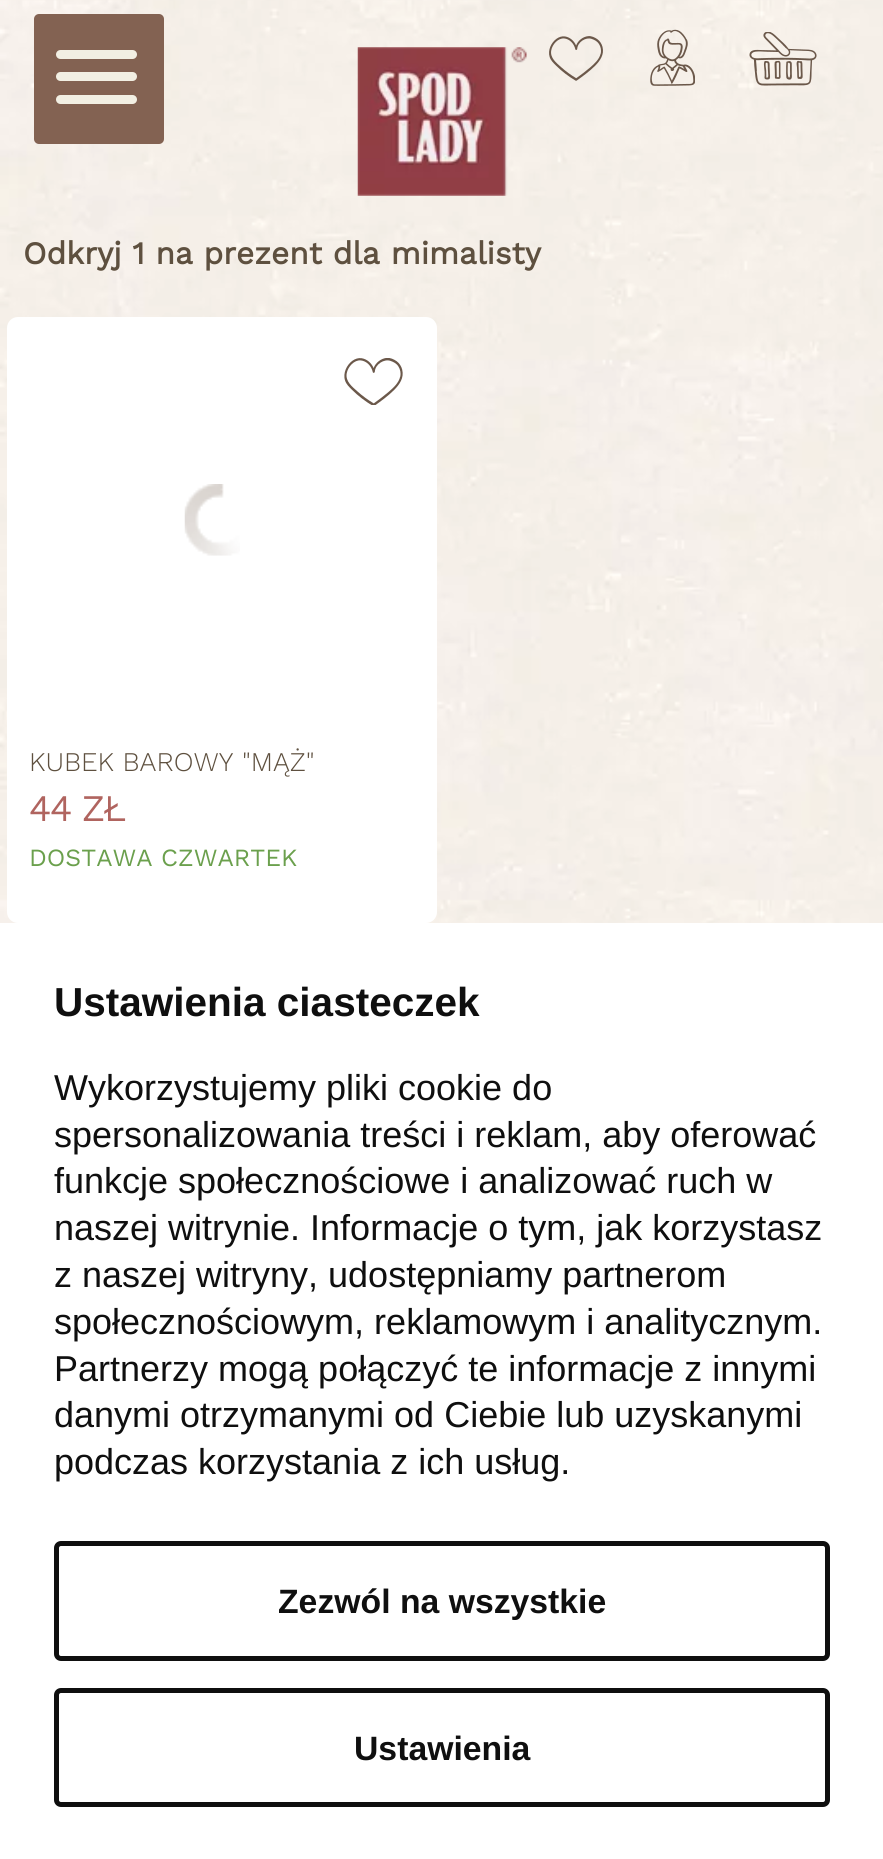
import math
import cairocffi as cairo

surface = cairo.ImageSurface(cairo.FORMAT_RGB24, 883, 1859)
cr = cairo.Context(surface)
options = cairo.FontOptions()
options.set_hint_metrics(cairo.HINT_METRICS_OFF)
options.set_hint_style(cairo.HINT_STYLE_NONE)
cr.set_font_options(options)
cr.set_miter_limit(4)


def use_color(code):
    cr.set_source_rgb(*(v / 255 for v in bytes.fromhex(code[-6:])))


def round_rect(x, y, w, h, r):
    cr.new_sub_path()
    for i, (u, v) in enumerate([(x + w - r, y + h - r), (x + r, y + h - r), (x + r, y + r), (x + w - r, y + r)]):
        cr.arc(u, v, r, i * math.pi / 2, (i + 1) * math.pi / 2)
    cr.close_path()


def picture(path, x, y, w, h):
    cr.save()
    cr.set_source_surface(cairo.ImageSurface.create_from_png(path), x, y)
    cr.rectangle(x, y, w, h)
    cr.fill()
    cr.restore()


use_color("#ffffff")
cr.paint()
picture("img1.png", 0, 0, 883, 923)
use_color("#836252")
round_rect(34, 14, 130, 130, 5)
cr.fill()
use_color("#f2efe3")
round_rect(56, 72, 81, 9, 4.5)
cr.fill()
round_rect(56, 50, 81, 9, 4.5)
cr.fill()
round_rect(56, 95, 81, 9, 4.5)
cr.fill()
picture("img2.png", 357, 47, 170, 149)
picture("img3.png", 549, 36, 54, 45)
picture("img4.png", 650, 29, 45, 57)
picture("img5.png", 749, 32, 68, 54)
cr.select_font_face("Work Sans", cairo.FONT_SLANT_NORMAL, cairo.FONT_WEIGHT_BOLD)
cr.set_font_size(31.5)
use_color("#5e503f")
cr.move_to(23, 264)
cr.show_text("Odkryj 1 na prezent dla mimalisty")
use_color("#ffffff")
round_rect(7, 317, 430, 606, 11)
cr.fill()
picture("img6.png", 344, 358, 59, 47)
picture("img7.png", 184, 484, 56, 72)
cr.select_font_face("Work Sans Light")
cr.set_font_size(27)
use_color("#5e503f")
cr.move_to(29, 771)
cr.show_text("KUBEK BAROWY \"MĄŻ\"")
cr.select_font_face("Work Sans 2", cairo.FONT_SLANT_NORMAL, cairo.FONT_WEIGHT_BOLD)
cr.set_font_size(36)
use_color("#b0645f")
cr.move_to(29, 821)
cr.show_text("44 ZŁ")
cr.select_font_face("Work Sans")
cr.set_font_size(24.75)
use_color("#6ba04d")
cr.move_to(29, 866)
cr.show_text("DOSTAWA CZWARTEK")
cr.select_font_face("Liberation Sans", cairo.FONT_SLANT_NORMAL, cairo.FONT_WEIGHT_BOLD)
cr.set_font_size(40.5)
use_color("#0f0f0f")
cr.move_to(54, 1016)
cr.show_text("Ustawienia ciasteczek")
cr.select_font_face("Liberation Sans")
cr.set_font_size(36)
cr.move_to(54, 1100)
cr.show_text("Wykorzystujemy pliki cookie do")
cr.move_to(54, 1147)
cr.show_text("spersonalizowania treści i reklam, aby oferować")
cr.move_to(54, 1193)
cr.show_text("funkcje społecznościowe i analizować ruch w")
cr.move_to(54, 1240)
cr.show_text("naszej witrynie. Informacje o tym, jak korzystasz")
cr.move_to(54, 1287)
cr.show_text("z naszej witryny, udostępniamy partnerom")
cr.move_to(54, 1334)
cr.show_text("społecznościowym, reklamowym i analitycznym.")
cr.move_to(54, 1381)
cr.show_text("Partnerzy mogą połączyć te informacje z innymi")
cr.move_to(54, 1427)
cr.show_text("danymi otrzymanymi od Ciebie lub uzyskanymi")
cr.move_to(54, 1474)
cr.show_text("podczas korzystania z ich usług.")
round_rect(56.5, 1543.5, 771, 115, 4.5)
cr.set_line_width(5)
cr.stroke()
cr.select_font_face("Liberation Sans", cairo.FONT_SLANT_NORMAL, cairo.FONT_WEIGHT_BOLD)
cr.set_font_size(33.75)
cr.move_to(278, 1613)
cr.show_text("Zezwól na wszystkie")
round_rect(56.5, 1690.5, 771, 114, 4.5)
cr.stroke()
cr.move_to(354, 1760)
cr.show_text("Ustawienia")
surface.write_to_png("result.png")
